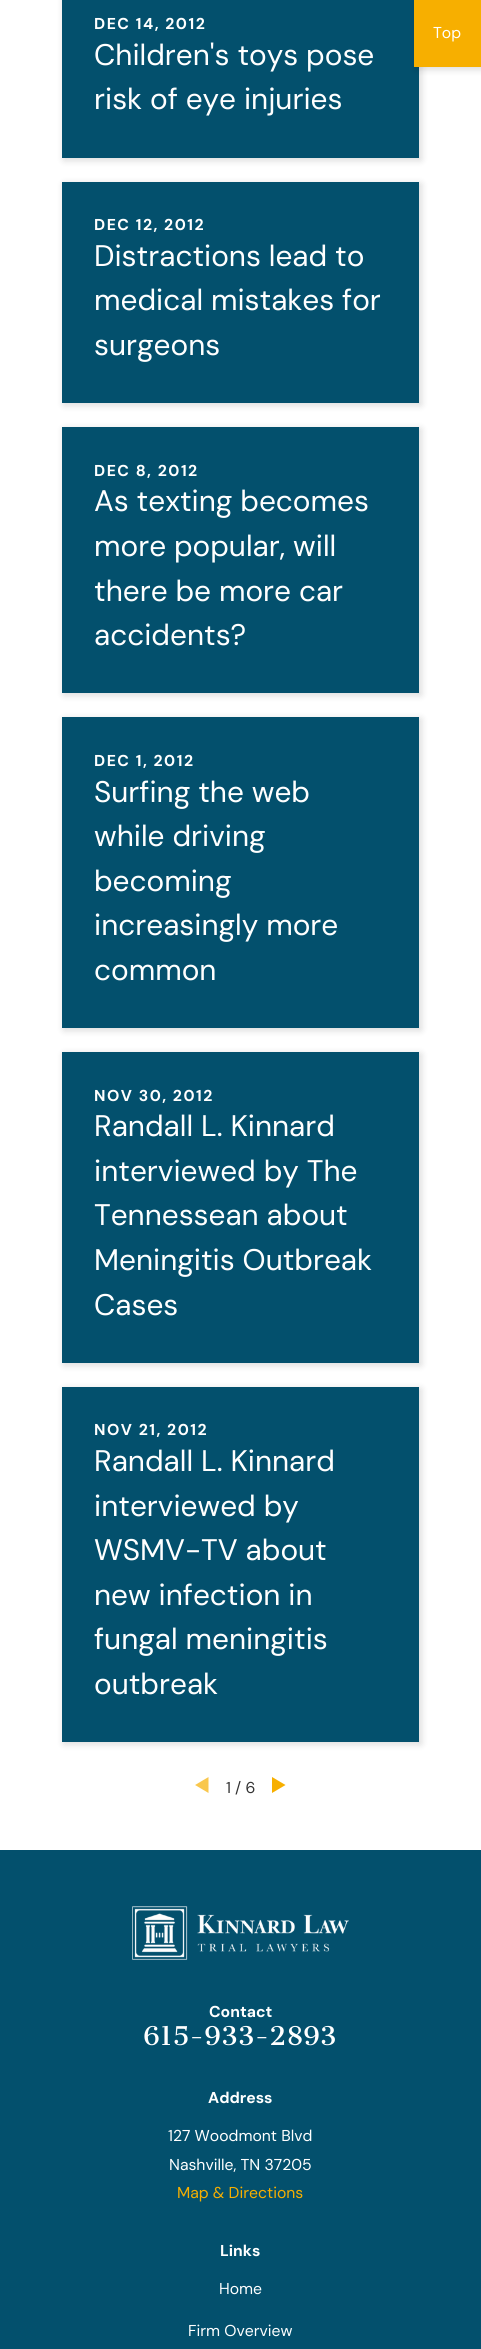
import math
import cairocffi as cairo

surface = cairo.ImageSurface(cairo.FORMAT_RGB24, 481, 2349)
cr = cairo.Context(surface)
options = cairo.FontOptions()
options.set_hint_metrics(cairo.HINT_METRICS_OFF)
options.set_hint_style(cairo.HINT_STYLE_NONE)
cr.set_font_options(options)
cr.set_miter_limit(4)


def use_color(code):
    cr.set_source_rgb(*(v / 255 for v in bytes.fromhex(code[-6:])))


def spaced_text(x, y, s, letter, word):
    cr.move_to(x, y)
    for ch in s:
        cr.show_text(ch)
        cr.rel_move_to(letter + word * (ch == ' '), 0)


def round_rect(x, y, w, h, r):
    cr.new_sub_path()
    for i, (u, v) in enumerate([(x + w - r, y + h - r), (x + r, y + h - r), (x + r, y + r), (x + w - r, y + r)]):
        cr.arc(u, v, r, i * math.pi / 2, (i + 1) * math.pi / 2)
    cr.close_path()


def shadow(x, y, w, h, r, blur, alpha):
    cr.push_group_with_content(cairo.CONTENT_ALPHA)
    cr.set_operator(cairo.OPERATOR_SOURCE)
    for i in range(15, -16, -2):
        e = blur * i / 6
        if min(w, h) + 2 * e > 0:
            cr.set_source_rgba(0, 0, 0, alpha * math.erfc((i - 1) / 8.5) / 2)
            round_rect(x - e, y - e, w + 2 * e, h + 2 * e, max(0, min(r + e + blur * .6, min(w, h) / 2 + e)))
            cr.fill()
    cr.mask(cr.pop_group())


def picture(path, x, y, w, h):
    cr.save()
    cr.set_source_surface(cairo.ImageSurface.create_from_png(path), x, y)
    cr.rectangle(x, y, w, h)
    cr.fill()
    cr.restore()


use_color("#ffffff")
cr.paint()
use_color("#000000")
shadow(64, -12, 357, 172, 0, 4, 0.16)
use_color("#03506d")
cr.rectangle(62, 0, 357, 158)
cr.fill()
cr.select_font_face("DM Sans", cairo.FONT_SLANT_NORMAL, cairo.FONT_WEIGHT_BOLD)
cr.set_font_size(15.75)
use_color("#ffffff")
spaced_text(94, 29, "DEC 14, 2012", 1.5, 0)
cr.select_font_face("DM Sans")
cr.set_font_size(29.75)
cr.move_to(94, 65)
cr.show_text("Children's toys pose")
cr.move_to(94, 109)
cr.show_text("risk of eye injuries")
use_color("#000000")
shadow(64, 184, 357, 221, 0, 4, 0.16)
use_color("#03506d")
cr.rectangle(62, 182, 357, 221)
cr.fill()
cr.select_font_face("DM Sans", cairo.FONT_SLANT_NORMAL, cairo.FONT_WEIGHT_BOLD)
cr.set_font_size(15.75)
use_color("#ffffff")
spaced_text(94, 230, "DEC 12, 2012", 1.5, 0)
cr.select_font_face("DM Sans")
cr.set_font_size(29.75)
cr.move_to(94, 266)
cr.show_text("Distractions lead to")
cr.move_to(94, 310)
cr.show_text("medical mistakes for")
cr.move_to(94, 355)
cr.show_text("surgeons")
use_color("#000000")
shadow(64, 429, 357, 266, 0, 4, 0.16)
use_color("#03506d")
cr.rectangle(62, 427, 357, 266)
cr.fill()
cr.select_font_face("DM Sans", cairo.FONT_SLANT_NORMAL, cairo.FONT_WEIGHT_BOLD)
cr.set_font_size(15.75)
use_color("#ffffff")
spaced_text(94, 476, "DEC 8, 2012", 1.5, 0)
cr.select_font_face("DM Sans")
cr.set_font_size(29.75)
cr.move_to(94, 511)
cr.show_text("As texting becomes")
cr.move_to(94, 556)
cr.show_text("more popular, will")
cr.move_to(94, 601)
cr.show_text("there be more car")
cr.move_to(94, 645)
cr.show_text("accidents?")
use_color("#000000")
shadow(64, 719, 357, 311, 0, 4, 0.16)
use_color("#03506d")
cr.rectangle(62, 717, 357, 311)
cr.fill()
cr.select_font_face("DM Sans", cairo.FONT_SLANT_NORMAL, cairo.FONT_WEIGHT_BOLD)
cr.set_font_size(15.75)
use_color("#ffffff")
spaced_text(94, 766, "DEC 1, 2012", 1.5, 0)
cr.select_font_face("DM Sans")
cr.set_font_size(29.75)
cr.move_to(94, 802)
cr.show_text("Surfing the web")
cr.move_to(94, 846)
cr.show_text("while driving")
cr.move_to(94, 891)
cr.show_text("becoming")
cr.move_to(94, 935)
cr.show_text("increasingly more")
cr.move_to(94, 980)
cr.show_text("common")
use_color("#000000")
shadow(64, 1054, 357, 311, 0, 4, 0.16)
use_color("#03506d")
cr.rectangle(62, 1052, 357, 311)
cr.fill()
cr.select_font_face("DM Sans", cairo.FONT_SLANT_NORMAL, cairo.FONT_WEIGHT_BOLD)
cr.set_font_size(15.75)
use_color("#ffffff")
spaced_text(94, 1101, "NOV 30, 2012", 1.5, 0)
cr.select_font_face("DM Sans")
cr.set_font_size(29.75)
cr.move_to(94, 1136)
cr.show_text("Randall L. Kinnard")
cr.move_to(94, 1181)
cr.show_text("interviewed by The")
cr.move_to(94, 1225)
cr.show_text("Tennessean about")
cr.move_to(94, 1270)
cr.show_text("Meningitis Outbreak")
cr.move_to(94, 1315)
cr.show_text("Cases")
use_color("#000000")
shadow(64, 1389, 357, 355, 0, 4, 0.16)
use_color("#03506d")
cr.rectangle(62, 1387, 357, 355)
cr.fill()
cr.select_font_face("DM Sans", cairo.FONT_SLANT_NORMAL, cairo.FONT_WEIGHT_BOLD)
cr.set_font_size(15.75)
use_color("#ffffff")
spaced_text(94, 1435, "NOV 21, 2012", 1.5, 0)
cr.select_font_face("DM Sans")
cr.set_font_size(29.75)
cr.move_to(94, 1471)
cr.show_text("Randall L. Kinnard")
cr.move_to(94, 1516)
cr.show_text("interviewed by")
cr.move_to(94, 1560)
cr.show_text("WSMV-TV about")
cr.move_to(94, 1605)
cr.show_text("new infection in")
cr.move_to(94, 1649)
cr.show_text("fungal meningitis")
cr.move_to(94, 1694)
cr.show_text("outbreak")
use_color("#f9c74d")
cr.new_path()
cr.move_to(195, 1785)
cr.line_to(208.5, 1777)
cr.line_to(208.5, 1793)
cr.close_path()
cr.fill()
cr.set_font_size(15.75)
use_color("#343434")
cr.move_to(226, 1793)
cr.show_text("1 / 6")
use_color("#f7af00")
cr.new_path()
cr.move_to(285.5, 1785)
cr.line_to(272, 1793)
cr.line_to(272, 1777)
cr.close_path()
cr.fill()
use_color("#000000")
shadow(416, 2, 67, 67, 0, 4, 0.16)
use_color("#f7af00")
cr.rectangle(414, 0, 67, 67)
cr.fill()
use_color("#ffffff")
cr.move_to(433, 38)
cr.show_text("Top")
use_color("#03506d")
cr.rectangle(0, 1850, 481, 499)
cr.fill()
picture("img1.png", 132, 1906, 217, 54)
cr.select_font_face("DM Sans", cairo.FONT_SLANT_NORMAL, cairo.FONT_WEIGHT_BOLD)
use_color("#ffffff")
cr.move_to(209, 2017)
cr.show_text("Contact")
cr.select_font_face("Cantata One")
cr.set_font_size(25.25)
cr.move_to(143, 2045)
cr.show_text("615-933-2893")
cr.select_font_face("DM Sans", cairo.FONT_SLANT_NORMAL, cairo.FONT_WEIGHT_BOLD)
cr.set_font_size(15.75)
cr.move_to(208, 2103)
cr.show_text("Address")
cr.select_font_face("DM Sans")
cr.move_to(168, 2141)
cr.show_text("127 Woodmont Blvd")
cr.move_to(169, 2170)
cr.show_text("Nashville, TN 37205")
use_color("#f7af00")
cr.move_to(177, 2198)
cr.show_text("Map & Directions")
cr.select_font_face("DM Sans", cairo.FONT_SLANT_NORMAL, cairo.FONT_WEIGHT_BOLD)
use_color("#ffffff")
cr.move_to(220, 2256)
cr.show_text("Links")
cr.select_font_face("DM Sans")
cr.move_to(219, 2294)
cr.show_text("Home")
cr.move_to(188, 2336)
cr.show_text("Firm Overview")
surface.write_to_png("result.png")
